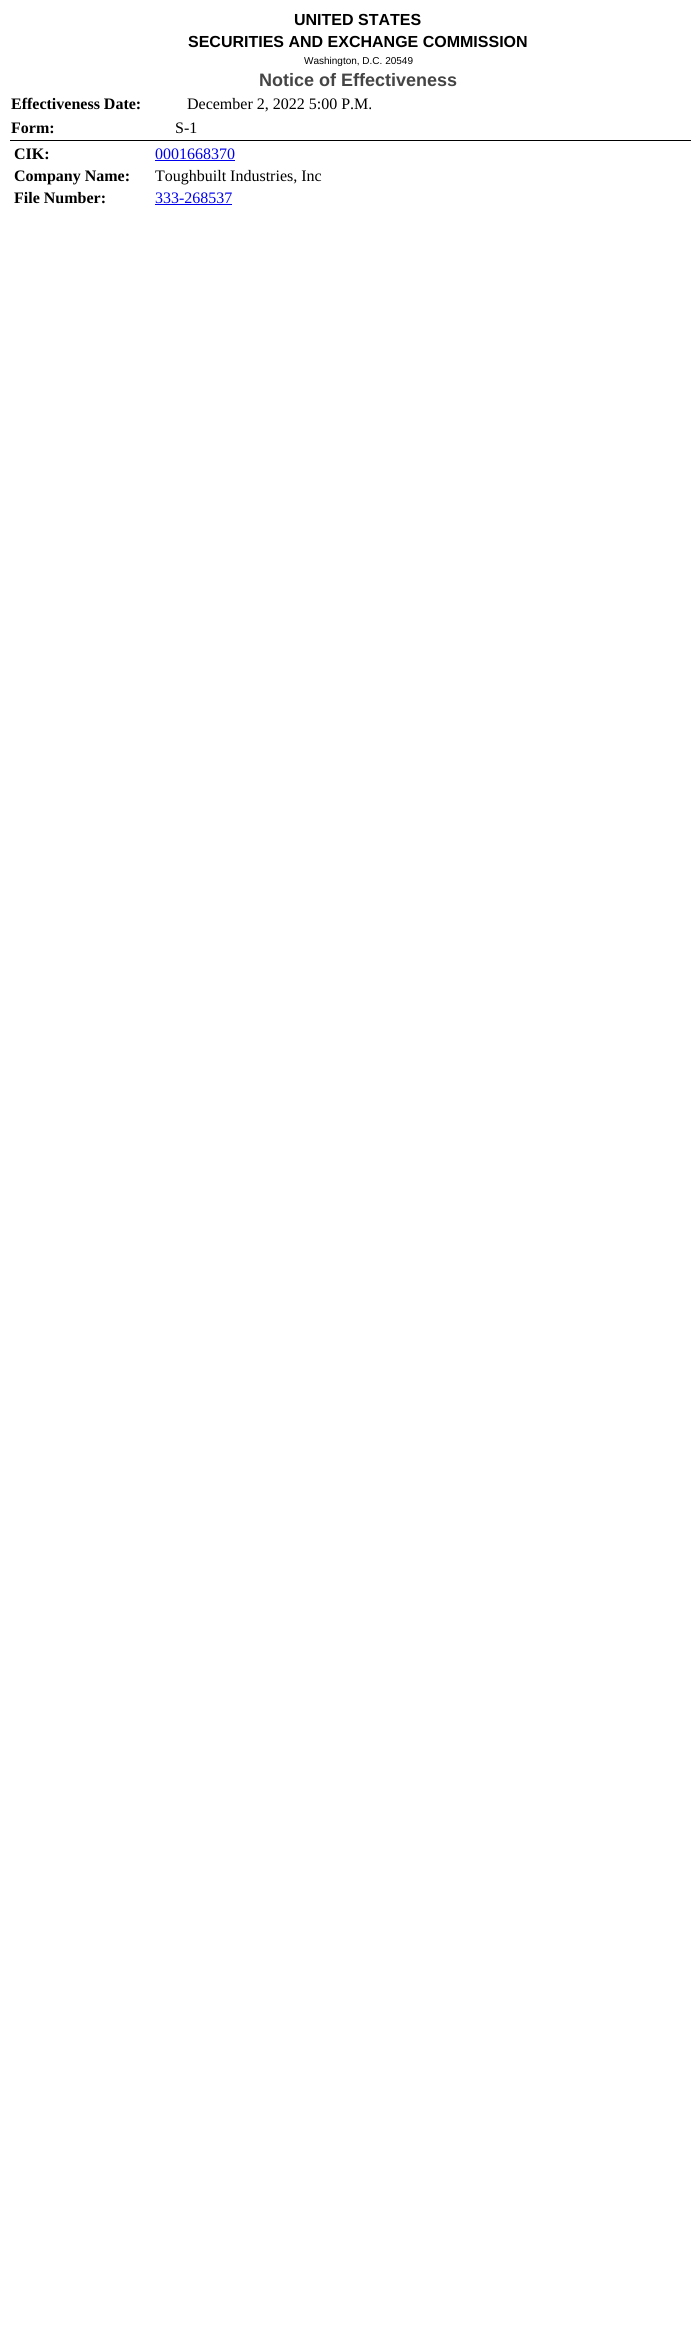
import math
import cairocffi as cairo

surface = cairo.ImageSurface(cairo.FORMAT_RGB24, 691, 2329)
cr = cairo.Context(surface)
options = cairo.FontOptions()
options.set_hint_metrics(cairo.HINT_METRICS_OFF)
options.set_hint_style(cairo.HINT_STYLE_NONE)
cr.set_font_options(options)
cr.set_miter_limit(4)


def use_color(code):
    cr.set_source_rgb(*(v / 255 for v in bytes.fromhex(code[-6:])))


use_color("#ffffff")
cr.paint()
cr.select_font_face("Liberation Sans", cairo.FONT_SLANT_NORMAL, cairo.FONT_WEIGHT_BOLD)
cr.set_font_size(16)
use_color("#000000")
cr.move_to(294, 25)
cr.show_text("UNITED STATES")
cr.move_to(188, 47)
cr.show_text("SECURITIES AND EXCHANGE COMMISSION")
cr.select_font_face("Liberation Sans")
cr.set_font_size(10)
cr.move_to(304, 64)
cr.show_text("Washington, D.C. 20549")
cr.select_font_face("Liberation Sans", cairo.FONT_SLANT_NORMAL, cairo.FONT_WEIGHT_BOLD)
cr.set_font_size(18)
use_color("#454545")
cr.move_to(259, 86)
cr.show_text("Notice of Effectiveness")
cr.select_font_face("Liberation Serif", cairo.FONT_SLANT_NORMAL, cairo.FONT_WEIGHT_BOLD)
cr.set_font_size(16)
use_color("#000000")
cr.move_to(11, 109)
cr.show_text("Effectiveness Date:")
cr.select_font_face("Liberation Serif")
cr.move_to(187, 109)
cr.show_text("December 2, 2022 5:00 P.M.")
cr.select_font_face("Liberation Serif", cairo.FONT_SLANT_NORMAL, cairo.FONT_WEIGHT_BOLD)
cr.move_to(11, 133)
cr.show_text("Form:")
cr.select_font_face("Liberation Serif")
cr.move_to(175, 133)
cr.show_text("S-1")
cr.rectangle(10, 140, 681, 1)
cr.fill()
cr.select_font_face("Liberation Serif", cairo.FONT_SLANT_NORMAL, cairo.FONT_WEIGHT_BOLD)
cr.move_to(14, 159)
cr.show_text("CIK:")
cr.select_font_face("Liberation Serif")
use_color("#0000ee")
cr.move_to(155, 159)
cr.show_text("0001668370")
cr.rectangle(155, 160, 80, 1)
cr.fill()
cr.select_font_face("Liberation Serif", cairo.FONT_SLANT_NORMAL, cairo.FONT_WEIGHT_BOLD)
use_color("#000000")
cr.move_to(14, 181)
cr.show_text("Company Name:")
cr.select_font_face("Liberation Serif")
cr.move_to(155, 181)
cr.show_text("Toughbuilt Industries, Inc")
cr.select_font_face("Liberation Serif", cairo.FONT_SLANT_NORMAL, cairo.FONT_WEIGHT_BOLD)
cr.move_to(14, 203)
cr.show_text("File Number:")
cr.select_font_face("Liberation Serif")
use_color("#0000ee")
cr.move_to(155, 203)
cr.show_text("333-268537")
cr.rectangle(155, 204, 77, 1)
cr.fill()
surface.write_to_png("result.png")
